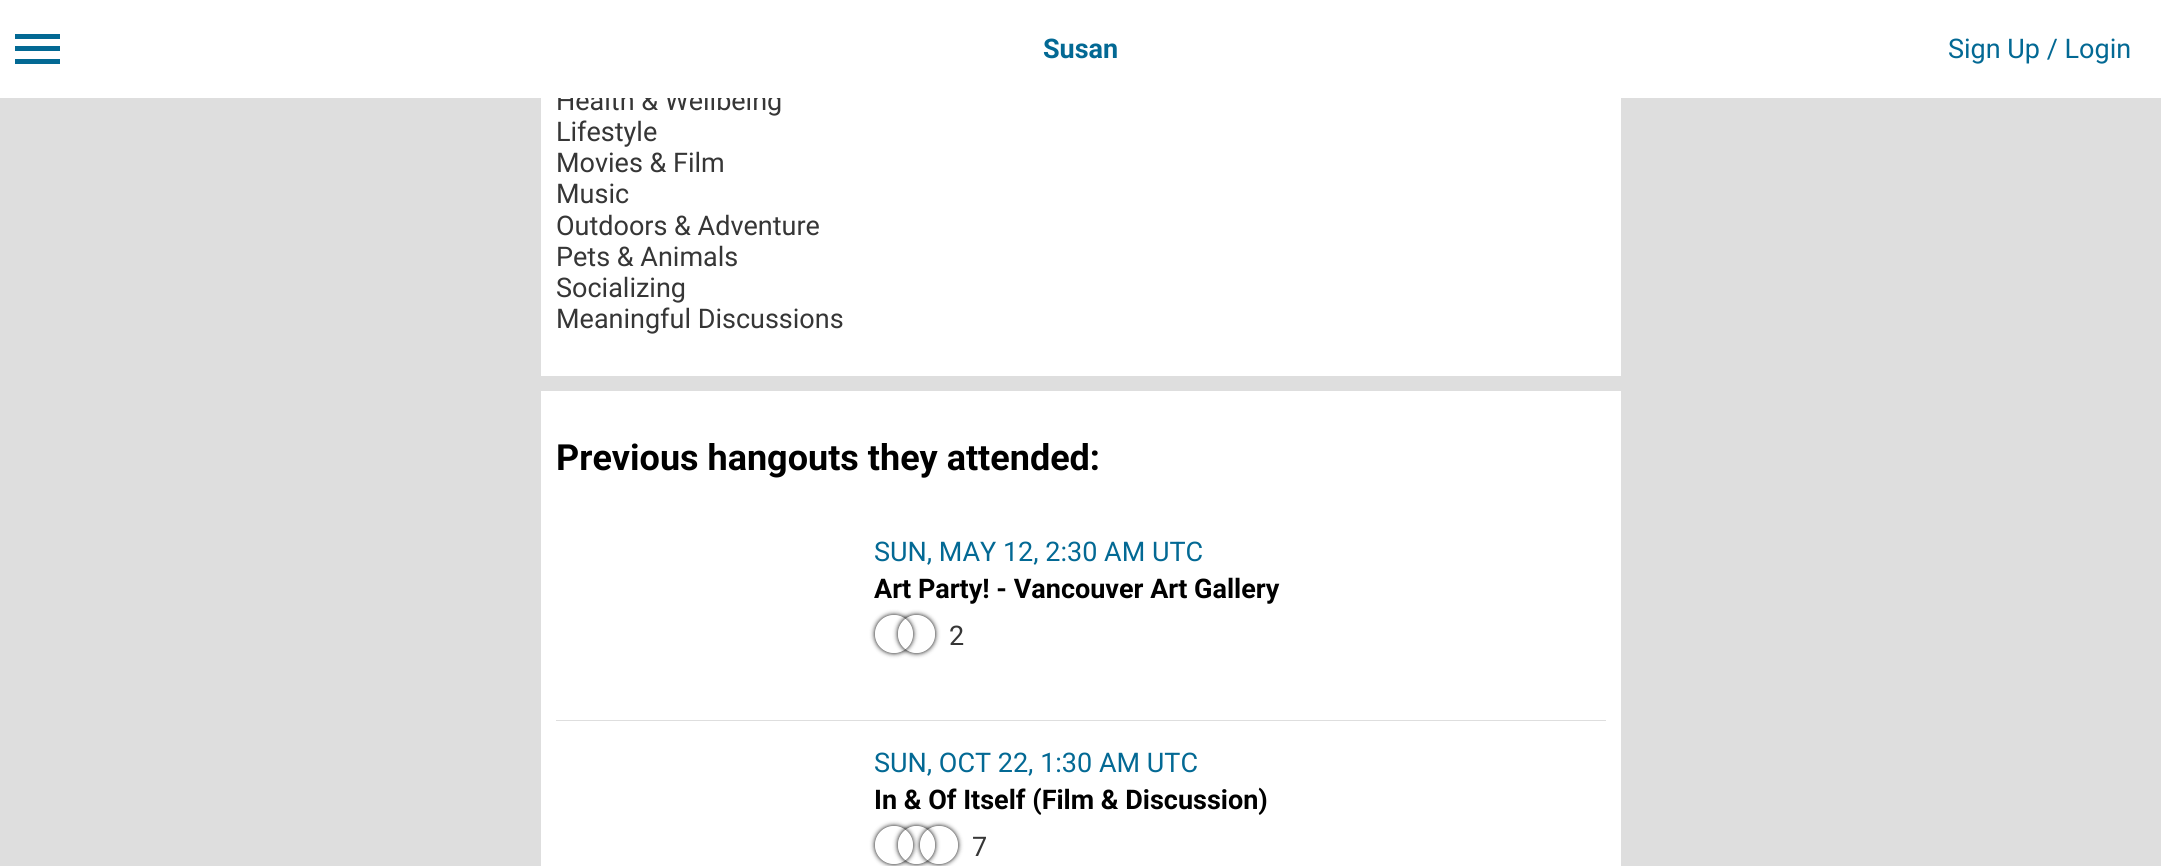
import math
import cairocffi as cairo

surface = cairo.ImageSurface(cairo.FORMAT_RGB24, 2161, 866)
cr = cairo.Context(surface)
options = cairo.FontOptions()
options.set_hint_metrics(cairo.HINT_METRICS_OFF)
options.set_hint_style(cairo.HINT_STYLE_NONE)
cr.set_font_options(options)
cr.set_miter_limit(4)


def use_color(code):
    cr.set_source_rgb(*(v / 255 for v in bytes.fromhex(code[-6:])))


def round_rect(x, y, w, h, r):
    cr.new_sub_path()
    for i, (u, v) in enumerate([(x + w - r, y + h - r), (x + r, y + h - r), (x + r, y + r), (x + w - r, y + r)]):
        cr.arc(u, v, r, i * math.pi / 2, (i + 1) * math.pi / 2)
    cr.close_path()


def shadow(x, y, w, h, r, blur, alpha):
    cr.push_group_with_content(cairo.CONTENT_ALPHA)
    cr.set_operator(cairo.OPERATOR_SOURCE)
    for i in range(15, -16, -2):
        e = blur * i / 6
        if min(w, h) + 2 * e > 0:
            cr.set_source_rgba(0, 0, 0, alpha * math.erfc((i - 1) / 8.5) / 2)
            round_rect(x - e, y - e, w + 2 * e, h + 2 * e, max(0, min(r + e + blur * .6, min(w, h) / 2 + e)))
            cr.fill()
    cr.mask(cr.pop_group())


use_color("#dedede")
cr.paint()
use_color("#ffffff")
cr.rectangle(541, 98, 1080, 278)
cr.fill()
cr.select_font_face("Roboto")
cr.set_font_size(27)
use_color("#363636")
cr.move_to(556, 110)
cr.show_text("Health & Wellbeing")
use_color("#ffffff")
cr.rectangle(0, 0, 2161, 98)
cr.fill()
use_color("#036994")
cr.new_path()
cr.move_to(15, 64)
cr.line_to(60, 64)
cr.line_to(60, 59)
cr.line_to(15, 59)
cr.close_path()
cr.move_to(15, 51)
cr.line_to(60, 51)
cr.line_to(60, 46)
cr.line_to(15, 46)
cr.close_path()
cr.move_to(15, 34)
cr.line_to(15, 39)
cr.line_to(60, 39)
cr.line_to(60, 34)
cr.close_path()
cr.fill()
cr.select_font_face("Roboto", cairo.FONT_SLANT_NORMAL, cairo.FONT_WEIGHT_BOLD)
cr.move_to(1043, 58)
cr.show_text("Susan")
cr.select_font_face("Roboto")
cr.move_to(1948, 58)
cr.show_text("Sign Up / Login")
use_color("#363636")
cr.move_to(556, 141)
cr.show_text("Lifestyle")
cr.move_to(556, 172)
cr.show_text("Movies & Film")
cr.move_to(556, 203)
cr.show_text("Music")
cr.move_to(556, 235)
cr.show_text("Outdoors & Adventure")
cr.move_to(556, 266)
cr.show_text("Pets & Animals")
cr.move_to(556, 297)
cr.show_text("Socializing")
cr.move_to(556, 328)
cr.show_text("Meaningful Discussions")
use_color("#ffffff")
cr.rectangle(541, 391, 1080, 475)
cr.fill()
cr.select_font_face("Roboto", cairo.FONT_SLANT_NORMAL, cairo.FONT_WEIGHT_BOLD)
cr.set_font_size(36)
use_color("#000000")
cr.move_to(556, 470)
cr.show_text("Previous hangouts they attended:")
use_color("#dedede")
cr.rectangle(556, 720, 1050, 1)
cr.fill()
cr.select_font_face("Roboto")
cr.set_font_size(27)
use_color("#036994")
cr.move_to(874, 561)
cr.show_text("SUN, MAY 12, 2:30 AM UTC")
cr.select_font_face("Roboto", cairo.FONT_SLANT_NORMAL, cairo.FONT_WEIGHT_BOLD)
use_color("#000000")
cr.move_to(874, 598)
cr.show_text("Art Party! - Vancouver Art Gallery")
cr.save()
cr.set_fill_rule(cairo.FILL_RULE_EVEN_ODD)
cr.new_path()
cr.move_to(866, 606)
cr.line_to(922, 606)
cr.line_to(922, 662)
cr.line_to(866, 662)
cr.close_path()
cr.move_to(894, 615)
cr.curve_to(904.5, 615, 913, 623.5, 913, 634)
cr.curve_to(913, 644.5, 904.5, 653, 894, 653)
cr.curve_to(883.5, 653, 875, 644.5, 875, 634)
cr.curve_to(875, 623.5, 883.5, 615, 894, 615)
cr.close_path()
cr.clip()
use_color("#000000")
shadow(875, 615, 38, 38, 19, 2.5, 1)
cr.restore()
cr.save()
cr.set_fill_rule(cairo.FILL_RULE_EVEN_ODD)
cr.new_path()
cr.move_to(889, 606)
cr.line_to(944, 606)
cr.line_to(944, 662)
cr.line_to(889, 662)
cr.close_path()
cr.move_to(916.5, 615)
cr.curve_to(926.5, 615, 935, 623.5, 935, 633.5)
cr.line_to(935, 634.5)
cr.curve_to(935, 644.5, 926.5, 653, 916.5, 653)
cr.curve_to(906.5, 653, 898, 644.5, 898, 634.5)
cr.line_to(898, 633.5)
cr.curve_to(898, 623.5, 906.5, 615, 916.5, 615)
cr.close_path()
cr.clip()
use_color("#000000")
shadow(898, 615, 37, 38, 18.5, 2.5, 1)
cr.restore()
cr.select_font_face("Roboto")
use_color("#363636")
cr.move_to(949, 645)
cr.show_text("2")
use_color("#036994")
cr.move_to(874, 772)
cr.show_text("SUN, OCT 22, 1:30 AM UTC")
cr.select_font_face("Roboto", cairo.FONT_SLANT_NORMAL, cairo.FONT_WEIGHT_BOLD)
use_color("#000000")
cr.move_to(874, 809)
cr.show_text("In & Of Itself (Film & Discussion)")
cr.save()
cr.set_fill_rule(cairo.FILL_RULE_EVEN_ODD)
cr.new_path()
cr.move_to(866, 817)
cr.line_to(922, 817)
cr.line_to(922, 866)
cr.line_to(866, 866)
cr.close_path()
cr.move_to(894, 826)
cr.curve_to(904.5, 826, 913, 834.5, 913, 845)
cr.curve_to(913, 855.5, 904.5, 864, 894, 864)
cr.curve_to(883.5, 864, 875, 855.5, 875, 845)
cr.curve_to(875, 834.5, 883.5, 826, 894, 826)
cr.close_path()
cr.clip()
use_color("#000000")
shadow(875, 826, 38, 38, 19, 2.5, 1)
cr.restore()
cr.save()
cr.set_fill_rule(cairo.FILL_RULE_EVEN_ODD)
cr.new_path()
cr.move_to(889, 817)
cr.line_to(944, 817)
cr.line_to(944, 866)
cr.line_to(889, 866)
cr.close_path()
cr.move_to(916.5, 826)
cr.curve_to(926.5, 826, 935, 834.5, 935, 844.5)
cr.line_to(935, 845.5)
cr.curve_to(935, 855.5, 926.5, 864, 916.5, 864)
cr.curve_to(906.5, 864, 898, 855.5, 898, 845.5)
cr.line_to(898, 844.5)
cr.curve_to(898, 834.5, 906.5, 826, 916.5, 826)
cr.close_path()
cr.clip()
use_color("#000000")
shadow(898, 826, 37, 38, 18.5, 2.5, 1)
cr.restore()
cr.save()
cr.set_fill_rule(cairo.FILL_RULE_EVEN_ODD)
cr.new_path()
cr.move_to(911, 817)
cr.line_to(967, 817)
cr.line_to(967, 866)
cr.line_to(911, 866)
cr.close_path()
cr.move_to(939, 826)
cr.curve_to(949.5, 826, 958, 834.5, 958, 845)
cr.curve_to(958, 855.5, 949.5, 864, 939, 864)
cr.curve_to(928.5, 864, 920, 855.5, 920, 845)
cr.curve_to(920, 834.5, 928.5, 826, 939, 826)
cr.close_path()
cr.clip()
use_color("#000000")
shadow(920, 826, 38, 38, 19, 2.5, 1)
cr.restore()
cr.select_font_face("Roboto")
use_color("#363636")
cr.move_to(972, 856)
cr.show_text("7")
surface.write_to_png("result.png")
